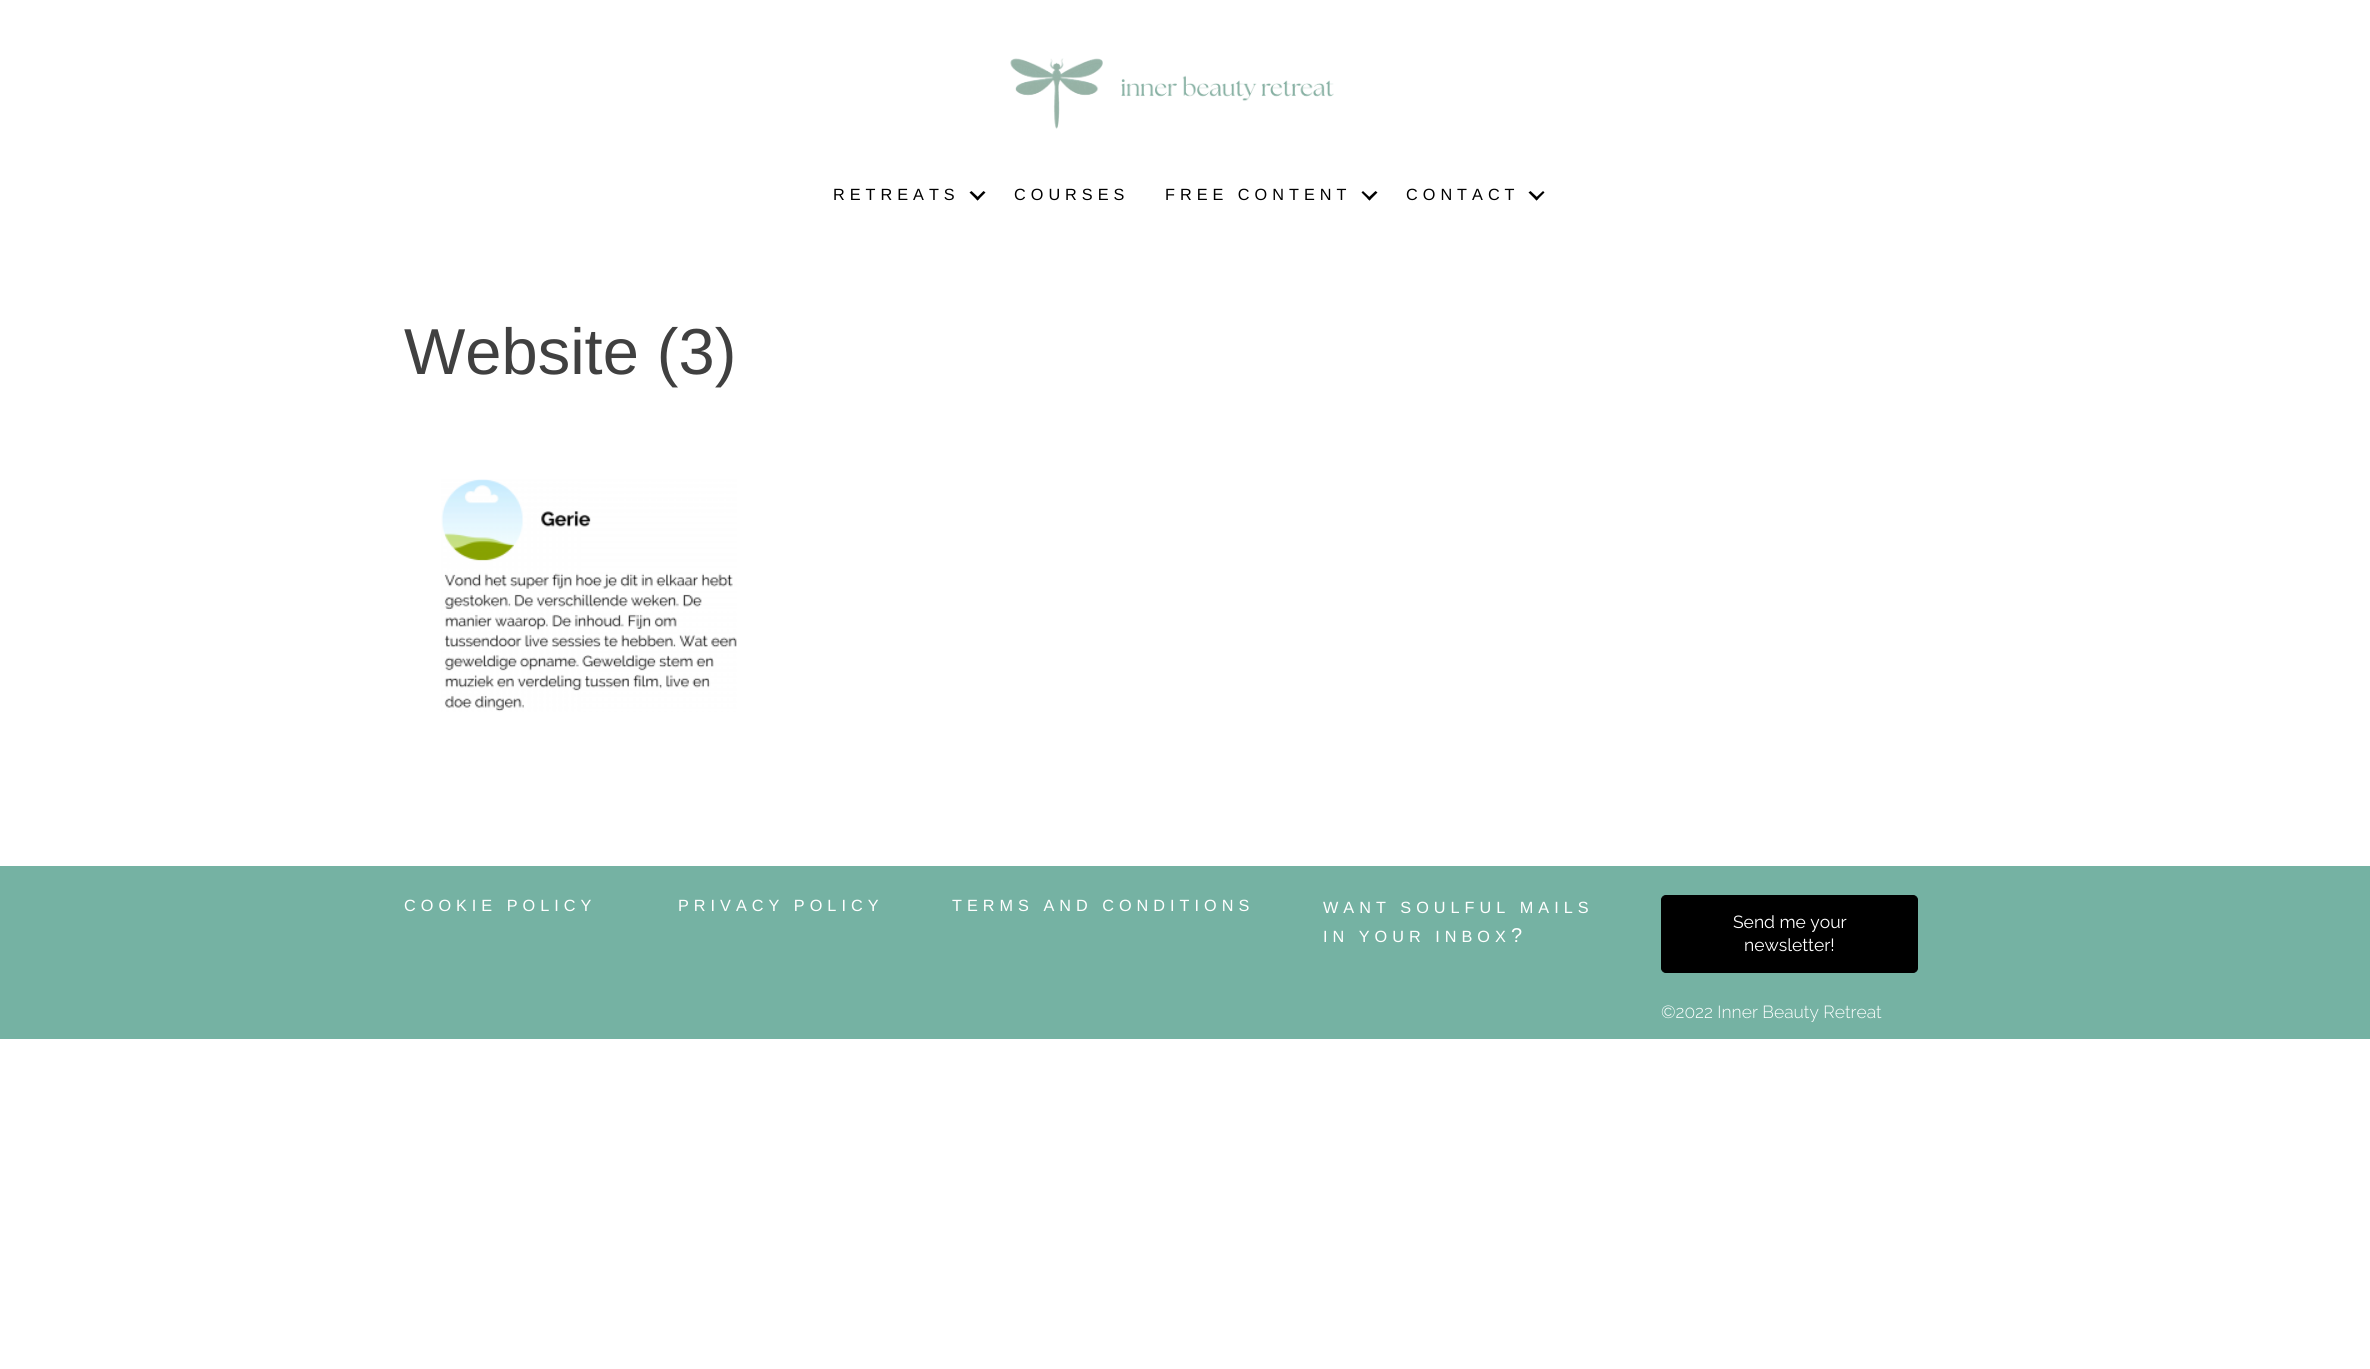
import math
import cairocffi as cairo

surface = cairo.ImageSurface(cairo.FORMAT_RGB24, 2370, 1369)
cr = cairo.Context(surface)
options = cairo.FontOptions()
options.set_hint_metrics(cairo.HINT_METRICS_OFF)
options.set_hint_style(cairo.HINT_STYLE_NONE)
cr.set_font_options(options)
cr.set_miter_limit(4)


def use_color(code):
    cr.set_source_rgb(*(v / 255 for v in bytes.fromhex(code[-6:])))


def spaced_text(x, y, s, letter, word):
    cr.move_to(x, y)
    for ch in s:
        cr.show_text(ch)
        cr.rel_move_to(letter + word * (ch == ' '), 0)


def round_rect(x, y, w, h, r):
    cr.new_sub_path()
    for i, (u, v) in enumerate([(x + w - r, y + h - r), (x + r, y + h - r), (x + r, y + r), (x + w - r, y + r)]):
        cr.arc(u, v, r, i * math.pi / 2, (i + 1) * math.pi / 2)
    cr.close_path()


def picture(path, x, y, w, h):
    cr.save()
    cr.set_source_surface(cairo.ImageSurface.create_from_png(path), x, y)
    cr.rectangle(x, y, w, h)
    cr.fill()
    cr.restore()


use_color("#ffffff")
cr.paint()
picture("img1.png", 1010, 58, 324, 71)
cr.select_font_face("Liberation Sans")
cr.set_font_size(16.25)
use_color("#000000")
spaced_text(833, 200, "RETREATS", 5, 0)
cr.new_path()
cr.move_to(983.5, 191)
cr.line_to(985.5, 192.5)
cr.line_to(977.5, 200.5)
cr.line_to(976, 198.5)
cr.close_path()
cr.fill()
cr.new_path()
cr.move_to(971.5, 191)
cr.line_to(979.5, 198.5)
cr.line_to(977.5, 200.5)
cr.line_to(969.5, 192.5)
cr.close_path()
cr.fill()
spaced_text(1014, 200, "COURSES", 5, 0)
spaced_text(1165, 200, "FREE CONTENT", 5, 0)
cr.new_path()
cr.move_to(1375.5, 191)
cr.line_to(1377.5, 192.5)
cr.line_to(1369.5, 200.5)
cr.line_to(1367.5, 198.5)
cr.close_path()
cr.fill()
cr.new_path()
cr.move_to(1363, 191)
cr.line_to(1371, 198.5)
cr.line_to(1369.5, 200.5)
cr.line_to(1361.5, 192.5)
cr.close_path()
cr.fill()
spaced_text(1406, 200, "CONTACT", 5, 0)
cr.new_path()
cr.move_to(1543, 191)
cr.line_to(1544.5, 192.5)
cr.line_to(1536.5, 200.5)
cr.line_to(1535, 198.5)
cr.close_path()
cr.fill()
cr.new_path()
cr.move_to(1530.5, 191)
cr.line_to(1538.5, 198.5)
cr.line_to(1536.5, 200.5)
cr.line_to(1528.5, 192.5)
cr.close_path()
cr.fill()
cr.set_font_size(65)
use_color("#404040")
cr.move_to(404, 374)
cr.show_text("Website (3)")
picture("img2.png", 441, 479, 296, 233)
use_color("#75b2a3")
cr.rectangle(0, 866, 2370, 173)
cr.fill()
cr.set_font_size(16.25)
use_color("#ffffff")
spaced_text(404, 911, "COOKIE POLICY", 5, 0)
spaced_text(678, 911, "PRIVACY POLICY", 5, 0)
spaced_text(952, 911, "TERMS AND CONDITIONS", 5, 0)
spaced_text(1323, 913, "WANT SOULFUL MAILS", 5, 0)
spaced_text(1323, 942, "IN YOUR INBOX", 5, 0)
cr.set_font_size(20)
spaced_text(1511, 942, "?", 5, 0)
use_color("#000000")
round_rect(1661.5, 895.5, 256, 77, 4.5)
cr.fill_preserve()
cr.set_line_width(1)
cr.stroke()
cr.select_font_face("Raleway")
cr.set_font_size(17.5)
use_color("#ffffff")
cr.move_to(1733, 928)
cr.show_text("Send me your")
cr.move_to(1744, 951)
cr.show_text("newsletter!")
cr.select_font_face("Raleway Light")
cr.move_to(1661, 1018)
cr.show_text("©2022 Inner Beauty Retreat")
surface.write_to_png("result.png")
